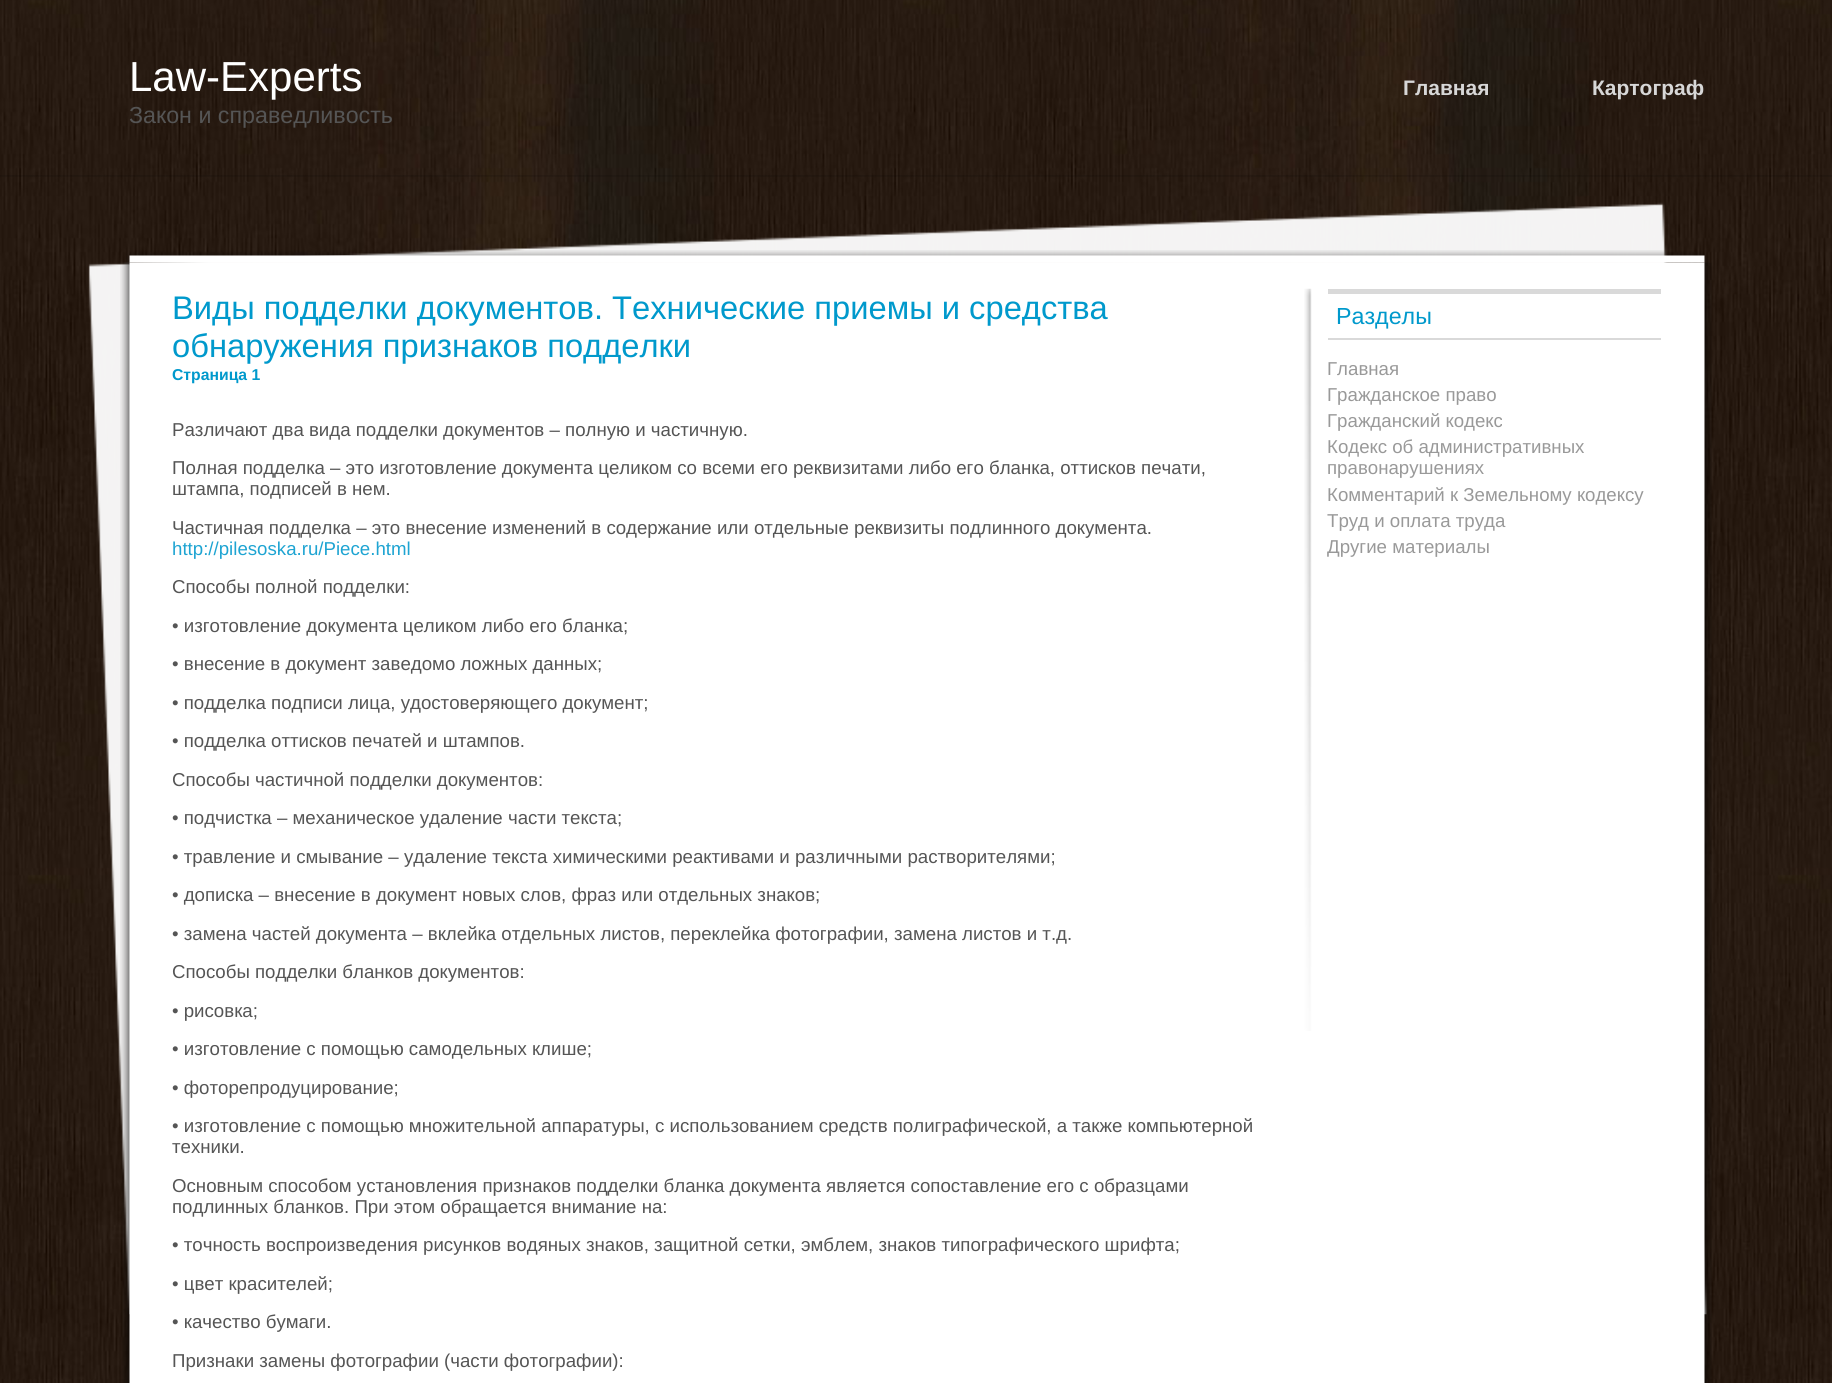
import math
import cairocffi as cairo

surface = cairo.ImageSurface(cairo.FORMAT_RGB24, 1832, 1383)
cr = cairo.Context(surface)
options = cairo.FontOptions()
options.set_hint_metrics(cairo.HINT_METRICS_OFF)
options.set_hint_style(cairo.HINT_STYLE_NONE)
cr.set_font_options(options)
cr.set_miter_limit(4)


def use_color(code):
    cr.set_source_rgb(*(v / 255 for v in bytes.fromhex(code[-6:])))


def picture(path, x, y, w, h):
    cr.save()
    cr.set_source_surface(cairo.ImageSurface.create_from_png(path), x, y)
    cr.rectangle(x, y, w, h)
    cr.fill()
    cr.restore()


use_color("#ffffff")
cr.paint()
picture("img1.png", 0, 0, 1832, 1383)
picture("img2.png", 0, 175, 1832, 2)
cr.select_font_face("Liberation Sans")
cr.set_font_size(42)
use_color("#ffffff")
cr.move_to(129, 91)
cr.show_text("Law-Experts")
cr.set_font_size(23.25)
use_color("#555555")
cr.move_to(129, 123)
cr.show_text("Закон и справедливость")
cr.select_font_face("Liberation Sans", cairo.FONT_SLANT_NORMAL, cairo.FONT_WEIGHT_BOLD)
cr.set_font_size(21)
use_color("#d7d7d7")
cr.move_to(1403, 95)
cr.show_text("Главная")
cr.move_to(1592, 95)
cr.show_text("Картограф")
picture("img3.png", 88, 202, 1619, 1113)
picture("img4.png", 126, 250, 1583, 13)
picture("img5.png", 120, 262, 1592, 1121)
cr.select_font_face("Liberation Sans")
cr.set_font_size(32.7)
use_color("#0099cc")
cr.move_to(172, 319)
cr.show_text("Виды подделки документов. Технические приемы и средства")
cr.move_to(172, 357)
cr.show_text("обнаружения признаков подделки")
cr.select_font_face("Liberation Sans", cairo.FONT_SLANT_NORMAL, cairo.FONT_WEIGHT_BOLD)
cr.set_font_size(15.75)
cr.move_to(172, 380)
cr.show_text("Страница 1")
cr.select_font_face("Liberation Sans")
cr.set_font_size(18.67)
use_color("#555555")
cr.move_to(172, 436)
cr.show_text("Различают два вида подделки документов – полную и частичную.")
cr.move_to(172, 474)
cr.show_text("Полная подделка – это изготовление документа целиком со всеми его реквизитами либо его бланка, оттисков печати,")
cr.move_to(172, 495)
cr.show_text("штампа, подписей в нем.")
cr.move_to(172, 534)
cr.show_text("Частичная подделка – это внесение изменений в содержание или отдельные реквизиты подлинного документа.")
use_color("#1ea4d2")
cr.move_to(172, 555)
cr.show_text("http://pilesoska.ru/Piece.html")
use_color("#555555")
cr.move_to(172, 593)
cr.show_text("Способы полной подделки:")
cr.move_to(172, 632)
cr.show_text("• изготовление документа целиком либо его бланка;")
cr.move_to(172, 670)
cr.show_text("• внесение в документ заведомо ложных данных;")
cr.move_to(172, 709)
cr.show_text("• подделка подписи лица, удостоверяющего документ;")
cr.move_to(172, 747)
cr.show_text("• подделка оттисков печатей и штампов.")
cr.move_to(172, 786)
cr.show_text("Способы частичной подделки документов:")
cr.move_to(172, 824)
cr.show_text("• подчистка – механическое удаление части текста;")
cr.move_to(172, 863)
cr.show_text("• травление и смывание – удаление текста химическими реактивами и различными растворителями;")
cr.move_to(172, 901)
cr.show_text("• дописка – внесение в документ новых слов, фраз или отдельных знаков;")
cr.move_to(172, 940)
cr.show_text("• замена частей документа – вклейка отдельных листов, переклейка фотографии, замена листов и т.д.")
cr.move_to(172, 978)
cr.show_text("Способы подделки бланков документов:")
cr.move_to(172, 1017)
cr.show_text("• рисовка;")
cr.move_to(172, 1055)
cr.show_text("• изготовление с помощью самодельных клише;")
cr.move_to(172, 1094)
cr.show_text("• фоторепродуцирование;")
cr.move_to(172, 1132)
cr.show_text("• изготовление с помощью множительной аппаратуры, с использованием средств полиграфической, а также компьютерной")
cr.move_to(172, 1153)
cr.show_text("техники.")
cr.move_to(172, 1192)
cr.show_text("Основным способом установления признаков подделки бланка документа является сопоставление его с образцами")
cr.move_to(172, 1213)
cr.show_text("подлинных бланков. При этом обращается внимание на:")
cr.move_to(172, 1251)
cr.show_text("• точность воспроизведения рисунков водяных знаков, защитной сетки, эмблем, знаков типографического шрифта;")
cr.move_to(172, 1290)
cr.show_text("• цвет красителей;")
cr.move_to(172, 1328)
cr.show_text("• качество бумаги.")
cr.move_to(172, 1367)
cr.show_text("Признаки замены фотографии (части фотографии):")
picture("img6.png", 1304, 288, 8, 743)
use_color("#d9d9d9")
cr.rectangle(1328, 289, 333, 5)
cr.fill()
cr.rectangle(1328, 338, 333, 2)
cr.fill()
cr.set_font_size(23.25)
use_color("#0099cc")
cr.move_to(1336, 324)
cr.show_text("Разделы")
cr.set_font_size(18.67)
use_color("#999999")
cr.move_to(1327, 375)
cr.show_text("Главная")
cr.move_to(1327, 401)
cr.show_text("Гражданское право")
cr.move_to(1327, 427)
cr.show_text("Гражданский кодекс")
cr.move_to(1327, 453)
cr.show_text("Кодекс об административных")
cr.move_to(1327, 474)
cr.show_text("правонарушениях")
cr.move_to(1327, 501)
cr.show_text("Комментарий к Земельному кодексу")
cr.move_to(1327, 527)
cr.show_text("Труд и оплата труда")
cr.move_to(1327, 553)
cr.show_text("Другие материалы")
surface.write_to_png("result.png")
